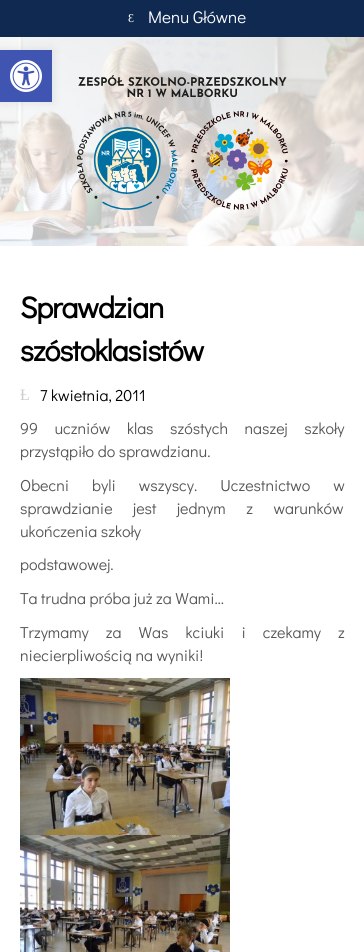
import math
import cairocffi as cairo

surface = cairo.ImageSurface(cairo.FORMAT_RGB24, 364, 952)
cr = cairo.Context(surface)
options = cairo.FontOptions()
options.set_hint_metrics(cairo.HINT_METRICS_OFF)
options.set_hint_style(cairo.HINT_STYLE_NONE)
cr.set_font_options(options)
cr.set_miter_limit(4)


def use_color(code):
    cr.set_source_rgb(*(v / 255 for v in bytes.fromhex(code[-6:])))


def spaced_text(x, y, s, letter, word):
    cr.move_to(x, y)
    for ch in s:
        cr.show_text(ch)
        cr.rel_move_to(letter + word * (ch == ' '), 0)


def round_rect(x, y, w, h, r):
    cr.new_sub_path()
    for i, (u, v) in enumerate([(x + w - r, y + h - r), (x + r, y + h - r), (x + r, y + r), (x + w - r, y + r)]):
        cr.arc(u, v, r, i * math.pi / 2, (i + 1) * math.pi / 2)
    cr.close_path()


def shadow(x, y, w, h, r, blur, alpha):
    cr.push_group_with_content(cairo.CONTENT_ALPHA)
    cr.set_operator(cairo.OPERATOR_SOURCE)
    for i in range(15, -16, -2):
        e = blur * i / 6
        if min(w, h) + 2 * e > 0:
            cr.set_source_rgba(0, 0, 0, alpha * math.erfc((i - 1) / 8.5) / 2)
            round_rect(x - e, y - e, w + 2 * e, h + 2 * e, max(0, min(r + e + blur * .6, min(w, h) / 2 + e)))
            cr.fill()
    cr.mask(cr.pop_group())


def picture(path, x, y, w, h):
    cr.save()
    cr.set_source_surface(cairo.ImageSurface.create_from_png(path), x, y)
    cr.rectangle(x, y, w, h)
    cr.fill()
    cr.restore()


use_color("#ffffff")
cr.paint()
use_color("#102951")
cr.rectangle(0, 0, 364, 37)
cr.fill()
cr.select_font_face("Liberation Serif")
cr.set_font_size(12)
use_color("#ffffff")
cr.move_to(128, 22)
cr.show_text("Ɛ")
cr.select_font_face("Didact Gothic")
cr.set_font_size(17)
cr.move_to(148, 23)
cr.show_text("Menu Główne")
picture("img1.png", 0, 37, 364, 209)
picture("img2.png", 76, 75, 212, 135)
use_color("#000000")
shadow(0, 50, 52, 52, 0, 5, 0.1)
use_color("#4054b2")
cr.rectangle(0, 50, 52, 52)
cr.fill()
picture("img3.png", 10, 60, 32, 32)
cr.select_font_face("Didact Gothic", cairo.FONT_SLANT_NORMAL, cairo.FONT_WEIGHT_BOLD)
cr.set_font_size(30)
use_color("#000000")
spaced_text(20, 318, "Sprawdzian", -1, 0)
spaced_text(20, 361, "szóstoklasistów", -1, 0)
cr.select_font_face("Liberation Serif")
cr.set_font_size(16)
use_color("#cccccc")
cr.move_to(20, 400)
cr.show_text("Ƚ")
cr.select_font_face("Didact Gothic")
use_color("#000000")
cr.move_to(40, 401)
cr.show_text("7 kwietnia, 2011")
use_color("#555555")
spaced_text(20, 434, "99 uczniów klas szóstych naszej szkoły", 0, 13)
cr.move_to(20, 457)
cr.show_text("przystąpiło do sprawdzianu.")
spaced_text(20, 491, "Obecni byli wszyscy. Uczestnictwo w", 0, 19.5)
spaced_text(20, 514, "sprawdzianie jest jednym z warunków", 0, 17)
cr.move_to(20, 537)
cr.show_text("ukończenia szkoły")
cr.move_to(20, 570)
cr.show_text("podstawowej.")
cr.move_to(20, 604)
cr.show_text("Ta trudna próba już za Wami…")
spaced_text(20, 638, "Trzymamy za Was kciuki i czekamy z", 0, 13.5)
cr.move_to(20, 661)
cr.show_text("niecierpliwością na wyniki!")
picture("img4.png", 20, 678, 210, 157)
picture("img5.png", 20, 835, 210, 117)
surface.write_to_png("result.png")
